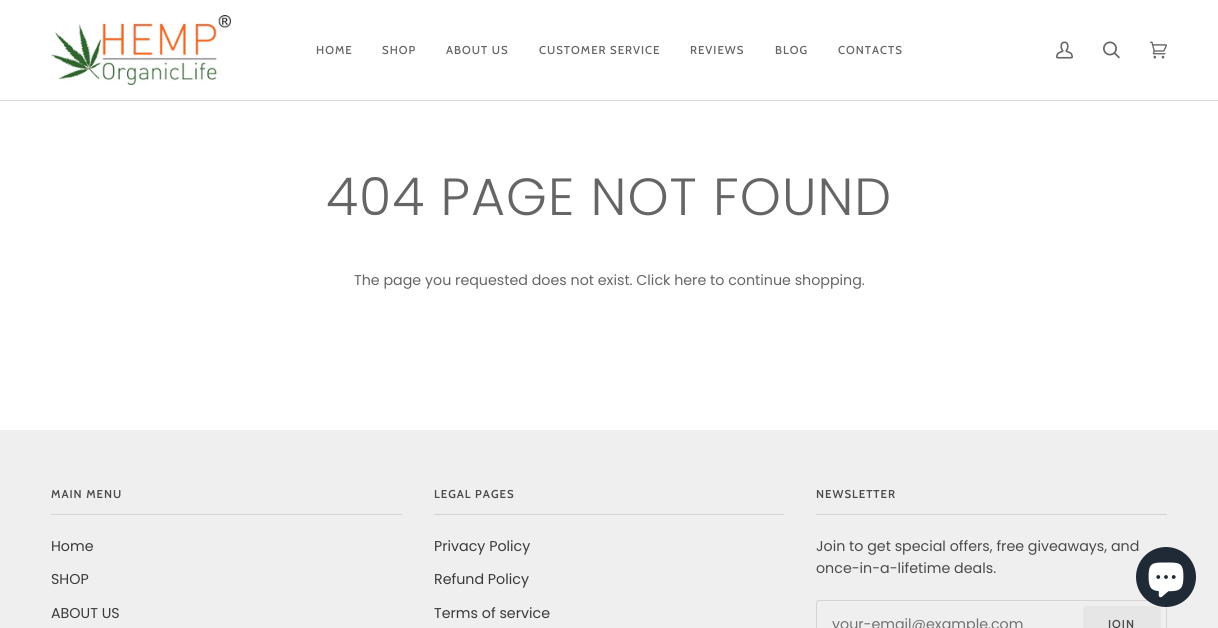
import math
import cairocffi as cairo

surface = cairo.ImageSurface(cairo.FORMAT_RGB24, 1218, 628)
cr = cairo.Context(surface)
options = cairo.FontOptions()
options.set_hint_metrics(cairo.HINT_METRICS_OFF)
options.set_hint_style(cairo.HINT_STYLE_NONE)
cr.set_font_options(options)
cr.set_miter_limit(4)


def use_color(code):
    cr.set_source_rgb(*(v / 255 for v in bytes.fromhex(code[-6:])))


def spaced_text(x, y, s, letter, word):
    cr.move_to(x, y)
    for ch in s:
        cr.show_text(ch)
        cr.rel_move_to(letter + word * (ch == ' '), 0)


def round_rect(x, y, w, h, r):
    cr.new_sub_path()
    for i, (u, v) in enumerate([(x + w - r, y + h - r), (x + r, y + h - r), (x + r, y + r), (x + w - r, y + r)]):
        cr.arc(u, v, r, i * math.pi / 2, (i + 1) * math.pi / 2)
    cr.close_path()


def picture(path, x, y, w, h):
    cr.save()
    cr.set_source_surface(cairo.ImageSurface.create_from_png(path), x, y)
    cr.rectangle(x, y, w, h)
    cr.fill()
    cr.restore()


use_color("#ffffff")
cr.paint()
use_color("#d7d7d7")
cr.rectangle(0, 100, 1218, 1)
cr.fill()
picture("img1.png", 51, 15, 180, 70)
cr.select_font_face("Cabin Medium")
cr.set_font_size(11.4)
use_color("#656565")
spaced_text(316, 54, "HOME", 1, 0)
spaced_text(382, 54, "SHOP", 1, 0)
spaced_text(446, 54, "ABOUT US", 1, 0)
spaced_text(539, 54, "CUSTOMER SERVICE", 1, 0)
spaced_text(690, 54, "REVIEWS", 1, 0)
spaced_text(775, 54, "BLOG", 1, 0)
spaced_text(838, 54, "CONTACTS", 1, 0)
picture("img2.png", 1056, 41, 17, 18)
picture("img3.png", 1103, 41, 17, 18)
picture("img4.png", 1150, 41, 17, 18)
cr.select_font_face("Poppins Light")
cr.set_font_size(52.25)
spaced_text(326, 215, "404 PAGE NOT FOUND", 1, 0)
cr.select_font_face("Poppins")
cr.set_font_size(14.25)
cr.move_to(354, 285)
cr.show_text("The page you requested does not exist. Click here to continue shopping.")
use_color("#efefef")
cr.rectangle(0, 430, 1218, 198)
cr.fill()
use_color("#d4d4d4")
cr.rectangle(51, 514, 351, 1)
cr.fill()
cr.select_font_face("Cabin SemiBold")
cr.set_font_size(11.4)
use_color("#4b4b4b")
spaced_text(51, 498, "MAIN MENU", 1, 0)
cr.select_font_face("Poppins")
cr.set_font_size(14.25)
use_color("#393939")
cr.move_to(51, 551)
cr.show_text("Home")
cr.move_to(51, 584)
cr.show_text("SHOP")
cr.move_to(51, 618)
cr.show_text("ABOUT US")
use_color("#d4d4d4")
cr.rectangle(434, 514, 350, 1)
cr.fill()
cr.select_font_face("Cabin SemiBold")
cr.set_font_size(11.4)
use_color("#4b4b4b")
spaced_text(434, 498, "LEGAL PAGES", 1, 0)
cr.select_font_face("Poppins")
cr.set_font_size(14.25)
use_color("#393939")
cr.move_to(434, 551)
cr.show_text("Privacy Policy")
cr.move_to(434, 584)
cr.show_text("Refund Policy")
cr.move_to(434, 618)
cr.show_text("Terms of service")
use_color("#d4d4d4")
cr.rectangle(816, 514, 351, 1)
cr.fill()
cr.select_font_face("Cabin SemiBold")
cr.set_font_size(11.4)
use_color("#4b4b4b")
spaced_text(816, 498, "NEWSLETTER", 1, 0)
cr.select_font_face("Poppins")
cr.set_font_size(14.25)
cr.move_to(816, 551)
cr.show_text("Join to get special offers, free giveaways, and")
cr.move_to(816, 573)
cr.show_text("once-in-a-lifetime deals.")
round_rect(816.5, 600.5, 350, 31, 2.5)
use_color("#d4d4d4")
cr.set_line_width(1)
cr.stroke()
use_color("#707070")
cr.move_to(832, 629)
cr.show_text("your-email@example.com")
use_color("#e6e6e6")
round_rect(1083, 606, 78, 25, 3)
cr.fill()
cr.select_font_face("Cabin SemiBold")
cr.set_font_size(11.4)
use_color("#4b4b4b")
spaced_text(1108, 628, "JOIN", 1, 0)
use_color("#202a36")
cr.new_path()
cr.arc(1166, 577, 30, 0, 2 * math.pi)
cr.fill()
picture("img5.png", 1148, 562, 36, 36)
surface.write_to_png("result.png")
